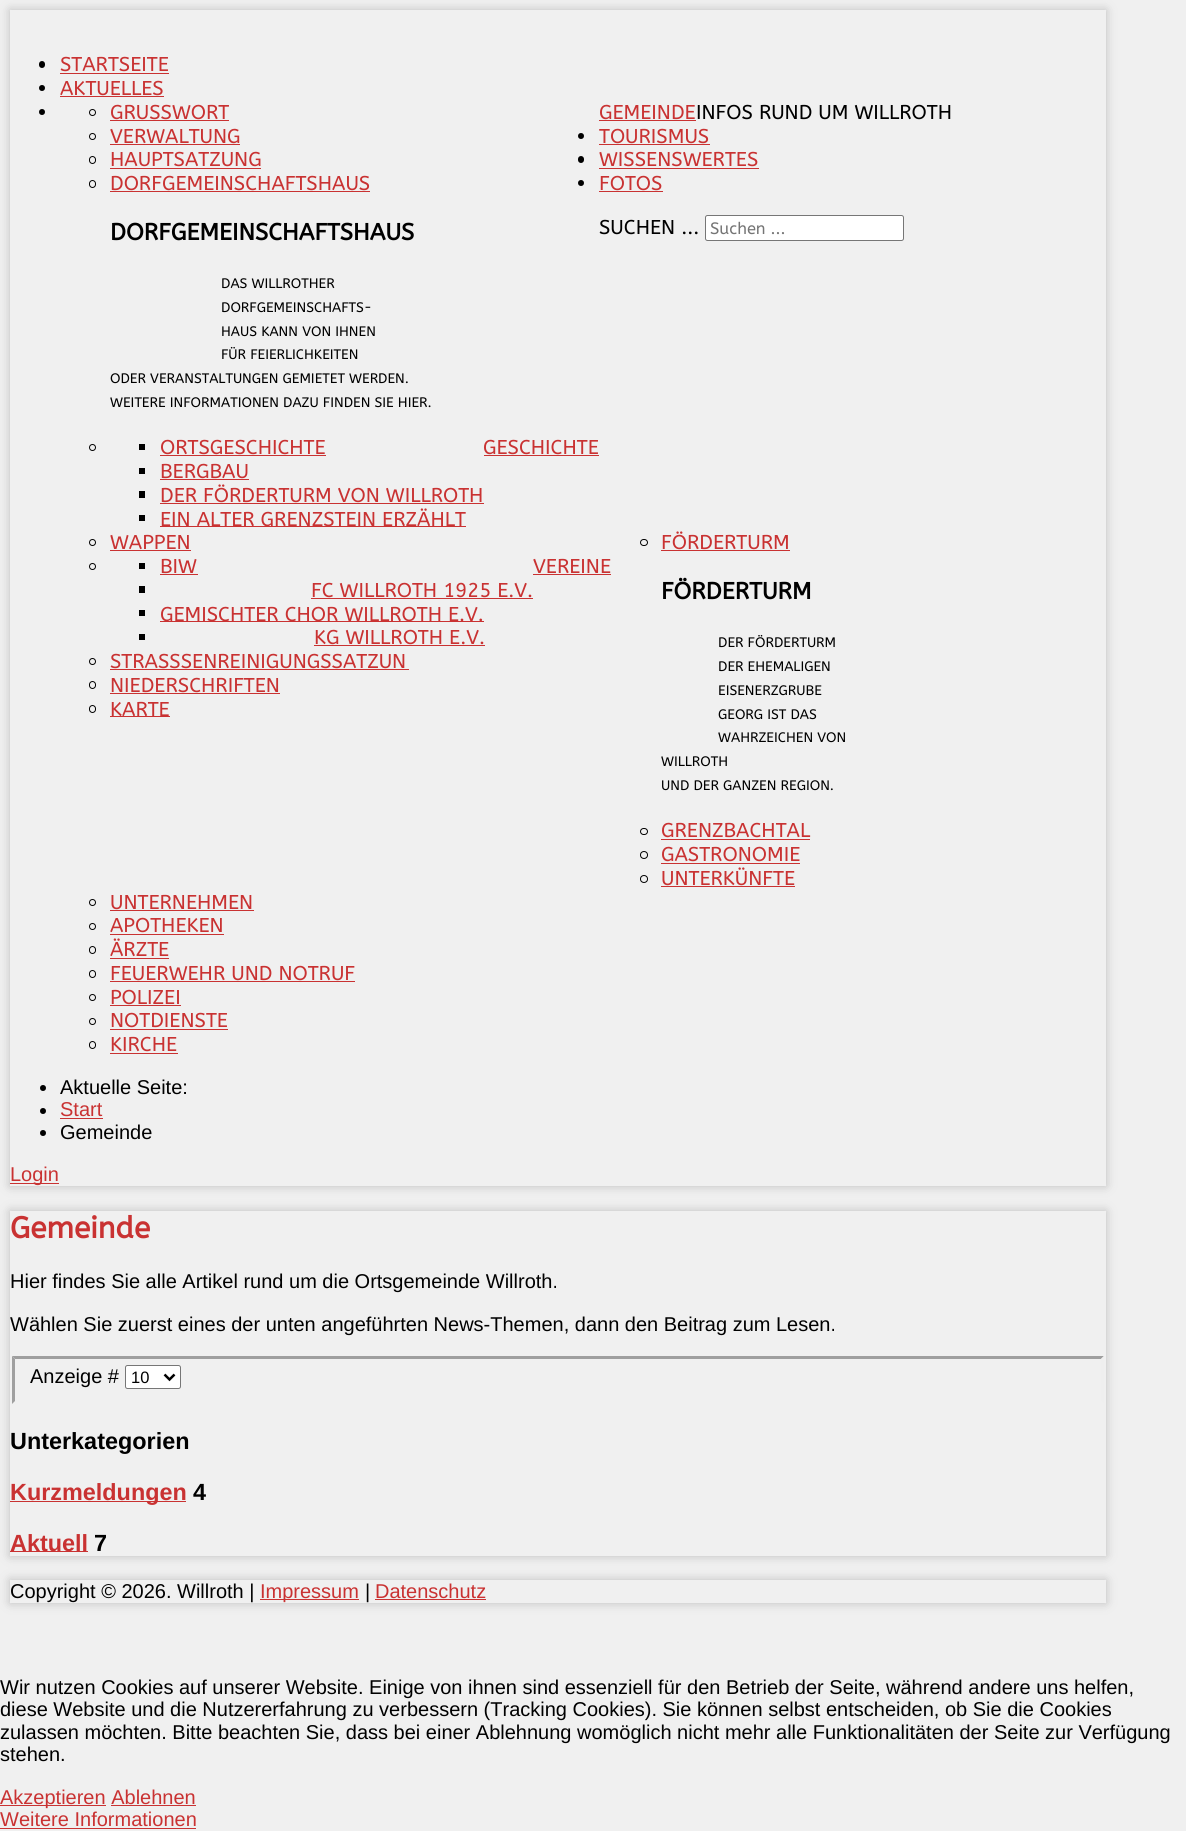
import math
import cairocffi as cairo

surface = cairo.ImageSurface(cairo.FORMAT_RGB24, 1186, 1831)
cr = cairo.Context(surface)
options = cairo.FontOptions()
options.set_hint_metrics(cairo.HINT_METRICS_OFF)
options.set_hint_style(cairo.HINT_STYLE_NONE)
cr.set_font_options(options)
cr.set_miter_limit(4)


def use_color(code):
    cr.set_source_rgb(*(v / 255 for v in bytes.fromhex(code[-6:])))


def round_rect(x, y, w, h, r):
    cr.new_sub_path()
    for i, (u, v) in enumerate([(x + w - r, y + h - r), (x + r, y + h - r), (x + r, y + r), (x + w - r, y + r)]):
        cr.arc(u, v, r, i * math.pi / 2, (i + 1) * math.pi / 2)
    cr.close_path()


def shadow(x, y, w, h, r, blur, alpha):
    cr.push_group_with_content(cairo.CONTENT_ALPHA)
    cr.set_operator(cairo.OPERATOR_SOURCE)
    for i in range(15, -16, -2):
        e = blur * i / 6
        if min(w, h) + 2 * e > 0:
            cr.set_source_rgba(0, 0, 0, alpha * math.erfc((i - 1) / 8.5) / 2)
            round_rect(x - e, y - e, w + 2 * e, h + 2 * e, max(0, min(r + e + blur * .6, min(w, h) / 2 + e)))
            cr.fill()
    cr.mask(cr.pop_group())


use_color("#f0f0f0")
cr.paint()
cr.save()
cr.set_fill_rule(cairo.FILL_RULE_EVEN_ODD)
cr.new_path()
cr.move_to(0, 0)
cr.line_to(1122, 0)
cr.line_to(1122, 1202)
cr.line_to(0, 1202)
cr.close_path()
cr.move_to(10, 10)
cr.line_to(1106, 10)
cr.line_to(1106, 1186)
cr.line_to(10, 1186)
cr.close_path()
cr.clip()
use_color("#bdbdbd")
shadow(10, 10, 1096, 1176, 0, 5, 1)
cr.restore()
use_color("#000000")
round_rect(39, 61, 6, 7, 3)
cr.fill()
cr.select_font_face("ABeeZee")
cr.set_font_size(20)
use_color("#c93232")
cr.move_to(60, 71)
cr.show_text("STARTSEITE")
cr.rectangle(60, 73, 109, 1)
cr.fill()
use_color("#000000")
cr.arc(42, 88, 3, 0, 2 * math.pi)
cr.fill()
use_color("#c93232")
cr.move_to(60, 95)
cr.show_text("AKTUELLES")
cr.rectangle(60, 96, 104, 1)
cr.fill()
use_color("#000000")
cr.arc(42, 112, 3, 0, 2 * math.pi)
cr.fill()
cr.arc(92.5, 112.5, 3, 0, 2 * math.pi)
cr.set_line_width(1)
cr.stroke()
use_color("#c93232")
cr.move_to(110, 119)
cr.show_text("GRUSSWORT")
cr.rectangle(110, 120, 119, 1)
cr.fill()
cr.arc(92.5, 136.5, 3, 0, 2 * math.pi)
use_color("#000000")
cr.stroke()
use_color("#c93232")
cr.move_to(110, 143)
cr.show_text("VERWALTUNG")
cr.rectangle(110, 144, 130, 1)
cr.fill()
round_rect(89.5, 156.5, 6, 7, 3)
use_color("#000000")
cr.stroke()
use_color("#c93232")
cr.move_to(110, 166)
cr.show_text("HAUPTSATZUNG")
cr.rectangle(110, 168, 151, 1)
cr.fill()
round_rect(89.5, 180.5, 6, 7, 3)
use_color("#000000")
cr.stroke()
use_color("#c93232")
cr.move_to(110, 190)
cr.show_text("DORFGEMEINSCHAFTSHAUS")
cr.rectangle(110, 191, 260, 1)
cr.fill()
cr.select_font_face("ABeeZee", cairo.FONT_SLANT_NORMAL, cairo.FONT_WEIGHT_BOLD)
cr.set_font_size(23.4)
use_color("#000000")
cr.move_to(110, 240)
cr.show_text("DORFGEMEINSCHAFTSHAUS")
cr.select_font_face("ABeeZee")
cr.set_font_size(13.75)
cr.move_to(221, 288)
cr.show_text("DAS WILLROTHER")
cr.move_to(221, 312)
cr.show_text("DORFGEMEINSCHAFTS-")
cr.move_to(221, 336)
cr.show_text("HAUS KANN VON IHNEN")
cr.move_to(221, 359)
cr.show_text("FÜR FEIERLICHKEITEN")
cr.move_to(110, 383)
cr.show_text("ODER VERANSTALTUNGEN GEMIETET WERDEN.")
cr.move_to(110, 407)
cr.show_text("WEITERE INFORMATIONEN DAZU FINDEN SIE HIER.")
cr.new_path()
cr.arc(92.5, 447.5, 3, 0, 2 * math.pi)
cr.stroke()
cr.rectangle(139, 444, 6, 6)
cr.fill()
cr.set_font_size(20)
use_color("#c93232")
cr.move_to(160, 454)
cr.show_text("ORTSGESCHICHTE")
cr.rectangle(160, 455, 166, 1)
cr.fill()
use_color("#000000")
cr.rectangle(139, 468, 6, 6)
cr.fill()
use_color("#c93232")
cr.move_to(160, 478)
cr.show_text("BERGBAU")
cr.rectangle(160, 479, 89, 1)
cr.fill()
use_color("#000000")
cr.rectangle(139, 491, 6, 7)
cr.fill()
use_color("#c93232")
cr.move_to(160, 502)
cr.show_text("DER FÖRDERTURM VON WILLROTH")
cr.rectangle(160, 503, 324, 1)
cr.fill()
use_color("#000000")
cr.rectangle(139, 515, 6, 6)
cr.fill()
use_color("#c93232")
cr.rectangle(160, 526, 306, 1)
cr.fill()
cr.move_to(160, 526)
cr.show_text("EIN ALTER GRENZSTEIN ERZÄHLT")
cr.move_to(483, 454)
cr.show_text("GESCHICHTE")
cr.rectangle(484, 455, 115, 1)
cr.fill()
cr.move_to(599, 119)
cr.show_text("GEMEINDE")
cr.rectangle(599, 120, 97, 1)
cr.fill()
use_color("#000000")
cr.move_to(696, 119)
cr.show_text("INFOS RUND UM WILLROTH")
cr.new_path()
cr.arc(92.5, 542.5, 3, 0, 2 * math.pi)
cr.stroke()
use_color("#c93232")
cr.move_to(110, 549)
cr.show_text("WAPPEN")
cr.rectangle(110, 550, 81, 1)
cr.fill()
cr.arc(92.5, 566.5, 3, 0, 2 * math.pi)
use_color("#000000")
cr.stroke()
cr.rectangle(139, 563, 6, 6)
cr.fill()
use_color("#c93232")
cr.move_to(160, 573)
cr.show_text("BIW")
cr.rectangle(160, 574, 38, 1)
cr.fill()
use_color("#000000")
cr.rectangle(139, 586, 6, 7)
cr.fill()
use_color("#c93232")
cr.move_to(311, 597)
cr.show_text("FC WILLROTH 1925 E.V.")
cr.rectangle(311, 598, 222, 1)
cr.fill()
use_color("#000000")
cr.rectangle(139, 610, 6, 6)
cr.fill()
use_color("#c93232")
cr.rectangle(160, 621, 324, 1)
cr.fill()
cr.move_to(160, 621)
cr.show_text("GEMISCHTER CHOR WILLROTH E.V.")
use_color("#000000")
cr.rectangle(139, 634, 6, 6)
cr.fill()
use_color("#c93232")
cr.move_to(314, 644)
cr.show_text("KG WILLROTH E.V.")
cr.rectangle(314, 645, 171, 1)
cr.fill()
cr.move_to(533, 573)
cr.show_text("VEREINE")
cr.rectangle(533, 574, 78, 1)
cr.fill()
cr.arc(92.5, 661.5, 3, 0, 2 * math.pi)
use_color("#000000")
cr.stroke()
use_color("#c93232")
cr.move_to(110, 668)
cr.show_text("STRASSSENREINIGUNGSSATZUN")
cr.rectangle(110, 669, 299, 1)
cr.fill()
round_rect(89.5, 681.5, 6, 7, 3)
use_color("#000000")
cr.stroke()
use_color("#c93232")
cr.move_to(110, 692)
cr.show_text("NIEDERSCHRIFTEN")
cr.rectangle(110, 693, 170, 1)
cr.fill()
round_rect(89.5, 705.5, 6, 7, 3)
use_color("#000000")
cr.stroke()
use_color("#c93232")
cr.rectangle(110, 716, 60, 1)
cr.fill()
cr.move_to(110, 716)
cr.show_text("KARTE")
use_color("#000000")
cr.new_path()
cr.arc(581, 136, 3, 0, 2 * math.pi)
cr.fill()
use_color("#c93232")
cr.move_to(599, 143)
cr.show_text("TOURISMUS")
cr.rectangle(599, 144, 111, 1)
cr.fill()
round_rect(640.5, 539.5, 7, 6, 3)
use_color("#000000")
cr.stroke()
use_color("#c93232")
cr.move_to(661, 549)
cr.show_text("FÖRDERTURM")
cr.rectangle(661, 550, 129, 1)
cr.fill()
cr.select_font_face("ABeeZee", cairo.FONT_SLANT_NORMAL, cairo.FONT_WEIGHT_BOLD)
cr.set_font_size(23.4)
use_color("#000000")
cr.move_to(661, 599)
cr.show_text("FÖRDERTURM")
cr.select_font_face("ABeeZee")
cr.set_font_size(13.75)
cr.move_to(718, 647)
cr.show_text("DER FÖRDERTURM")
cr.move_to(718, 671)
cr.show_text("DER EHEMALIGEN")
cr.move_to(718, 695)
cr.show_text("EISENERZGRUBE")
cr.move_to(718, 719)
cr.show_text("GEORG IST DAS")
cr.move_to(718, 742)
cr.show_text("WAHRZEICHEN VON")
cr.move_to(661, 766)
cr.show_text("WILLROTH")
cr.move_to(661, 790)
cr.show_text("UND DER GANZEN REGION.")
round_rect(640.5, 828.5, 7, 6, 3)
cr.stroke()
cr.set_font_size(20)
use_color("#c93232")
cr.move_to(661, 837)
cr.show_text("GRENZBACHTAL")
cr.rectangle(661, 839, 149, 1)
cr.fill()
cr.arc(644, 855, 3.5, 0, 2 * math.pi)
use_color("#000000")
cr.stroke()
use_color("#c93232")
cr.move_to(661, 861)
cr.show_text("GASTRONOMIE")
cr.rectangle(661, 863, 139, 1)
cr.fill()
cr.arc(644, 879, 3.5, 0, 2 * math.pi)
use_color("#000000")
cr.stroke()
use_color("#c93232")
cr.move_to(661, 885)
cr.show_text("UNTERKÜNFTE")
cr.rectangle(661, 886, 134, 1)
cr.fill()
use_color("#000000")
round_rect(578, 156, 6, 7, 3)
cr.fill()
use_color("#c93232")
cr.move_to(599, 166)
cr.show_text("WISSENSWERTES")
cr.rectangle(599, 168, 160, 1)
cr.fill()
cr.arc(92.5, 902.5, 3, 0, 2 * math.pi)
use_color("#000000")
cr.stroke()
use_color("#c93232")
cr.move_to(110, 909)
cr.show_text("UNTERNEHMEN")
cr.rectangle(110, 910, 144, 1)
cr.fill()
cr.arc(92.5, 926.5, 3, 0, 2 * math.pi)
use_color("#000000")
cr.stroke()
use_color("#c93232")
cr.move_to(110, 932)
cr.show_text("APOTHEKEN")
cr.rectangle(110, 934, 114, 1)
cr.fill()
round_rect(89.5, 946.5, 6, 7, 3)
use_color("#000000")
cr.stroke()
use_color("#c93232")
cr.move_to(110, 956)
cr.show_text("ÄRZTE")
cr.rectangle(110, 958, 59, 1)
cr.fill()
round_rect(89.5, 970.5, 6, 7, 3)
use_color("#000000")
cr.stroke()
use_color("#c93232")
cr.move_to(110, 980)
cr.show_text("FEUERWEHR UND NOTRUF")
cr.rectangle(110, 981, 245, 1)
cr.fill()
cr.arc(92.5, 997.5, 3, 0, 2 * math.pi)
use_color("#000000")
cr.stroke()
use_color("#c93232")
cr.move_to(110, 1004)
cr.show_text("POLIZEI")
cr.rectangle(110, 1005, 71, 1)
cr.fill()
cr.arc(92.5, 1021.5, 3, 0, 2 * math.pi)
use_color("#000000")
cr.stroke()
use_color("#c93232")
cr.move_to(110, 1027)
cr.show_text("NOTDIENSTE")
cr.rectangle(110, 1029, 118, 1)
cr.fill()
round_rect(89.5, 1041.5, 6, 7, 3)
use_color("#000000")
cr.stroke()
use_color("#c93232")
cr.move_to(110, 1051)
cr.show_text("KIRCHE")
cr.rectangle(110, 1053, 68, 1)
cr.fill()
use_color("#000000")
cr.arc(581, 183, 3, 0, 2 * math.pi)
cr.fill()
use_color("#c93232")
cr.move_to(599, 190)
cr.show_text("FOTOS")
cr.rectangle(599, 191, 64, 1)
cr.fill()
use_color("#000000")
cr.move_to(599, 234)
cr.show_text("SUCHEN ...")
use_color("#ffffff")
round_rect(705.5, 215.5, 198, 25, 2)
cr.fill_preserve()
use_color("#767676")
cr.stroke()
cr.set_font_size(16.5)
use_color("#757575")
cr.move_to(710, 234)
cr.show_text("Suchen ...")
use_color("#000000")
cr.new_path()
cr.arc(43, 1088, 3, 0, 2 * math.pi)
cr.fill()
cr.select_font_face("Liberation Sans")
cr.set_font_size(20)
cr.move_to(60, 1094)
cr.show_text("Aktuelle Seite:")
cr.new_path()
cr.arc(43, 1111, 3, 0, 2 * math.pi)
cr.fill()
use_color("#c93232")
cr.move_to(60, 1116)
cr.show_text("Start")
cr.rectangle(60, 1118, 43, 1)
cr.fill()
use_color("#000000")
cr.arc(43, 1133, 3, 0, 2 * math.pi)
cr.fill()
cr.move_to(60, 1139)
cr.show_text("Gemeinde")
use_color("#c93232")
cr.rectangle(10, 1183, 49, 1)
cr.fill()
cr.move_to(10, 1181)
cr.show_text("Login")
cr.save()
cr.set_fill_rule(cairo.FILL_RULE_EVEN_ODD)
cr.new_path()
cr.move_to(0, 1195)
cr.line_to(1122, 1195)
cr.line_to(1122, 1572)
cr.line_to(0, 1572)
cr.close_path()
cr.move_to(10, 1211)
cr.line_to(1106, 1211)
cr.line_to(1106, 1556)
cr.line_to(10, 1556)
cr.close_path()
cr.clip()
use_color("#bdbdbd")
shadow(10, 1211, 1096, 345, 0, 5, 1)
cr.restore()
cr.select_font_face("ABeeZee", cairo.FONT_SLANT_NORMAL, cairo.FONT_WEIGHT_BOLD)
cr.set_font_size(30)
cr.move_to(10, 1238)
cr.show_text("Gemeinde")
cr.select_font_face("Liberation Sans")
cr.set_font_size(20)
use_color("#000000")
cr.move_to(10, 1288)
cr.show_text("Hier findes Sie alle Artikel rund um die Ortsgemeinde Willroth.")
cr.move_to(10, 1331)
cr.show_text("Wählen Sie zuerst eines der unten angeführten News-Themen, dann den Beitrag zum Lesen.")
use_color("#9f9f9f")
cr.new_path()
cr.move_to(12, 1356)
cr.line_to(1104, 1356)
cr.line_to(1101, 1359)
cr.line_to(15, 1359)
cr.close_path()
cr.fill()
use_color("#efefef")
cr.new_path()
cr.move_to(1104, 1356)
cr.line_to(1104, 1404)
cr.line_to(1101, 1401)
cr.line_to(1101, 1359)
cr.close_path()
cr.fill()
use_color("#9f9f9f")
cr.new_path()
cr.move_to(12, 1404)
cr.line_to(12, 1356)
cr.line_to(15, 1359)
cr.line_to(15, 1401)
cr.close_path()
cr.fill()
use_color("#000000")
cr.move_to(30, 1383)
cr.show_text("Anzeige #")
use_color("#ffffff")
round_rect(125.5, 1365.5, 55, 23, 2)
cr.fill_preserve()
use_color("#767676")
cr.stroke()
cr.new_path()
cr.move_to(164.5, 1374.5)
cr.line_to(169.5, 1379.5)
cr.line_to(174.5, 1374.5)
use_color("#000000")
cr.set_line_width(2.5)
cr.stroke()
cr.set_font_size(16.5)
cr.move_to(131, 1383)
cr.show_text("10")
cr.select_font_face("Liberation Sans", cairo.FONT_SLANT_NORMAL, cairo.FONT_WEIGHT_BOLD)
cr.set_font_size(23.4)
cr.move_to(10, 1449)
cr.show_text("Unterkategorien")
use_color("#c93232")
cr.rectangle(10, 1501, 176, 1)
cr.fill()
cr.move_to(10, 1500)
cr.show_text("Kurzmeldungen")
use_color("#000000")
cr.move_to(193, 1500)
cr.show_text("4")
use_color("#c93232")
cr.rectangle(10, 1551, 78, 1)
cr.fill()
cr.move_to(10, 1551)
cr.show_text("Aktuell")
use_color("#000000")
cr.move_to(94, 1551)
cr.show_text("7")
cr.save()
cr.set_fill_rule(cairo.FILL_RULE_EVEN_ODD)
cr.new_path()
cr.move_to(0, 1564)
cr.line_to(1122, 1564)
cr.line_to(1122, 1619)
cr.line_to(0, 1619)
cr.close_path()
cr.move_to(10, 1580)
cr.line_to(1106, 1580)
cr.line_to(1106, 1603)
cr.line_to(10, 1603)
cr.close_path()
cr.clip()
use_color("#bdbdbd")
shadow(10, 1580, 1096, 23, 0, 5, 1)
cr.restore()
cr.select_font_face("Liberation Sans")
cr.set_font_size(20)
cr.move_to(10, 1598)
cr.show_text("Copyright © 2026. Willroth |")
use_color("#c93232")
cr.rectangle(260, 1599, 99, 1)
cr.fill()
cr.move_to(260, 1598)
cr.show_text("Impressum")
use_color("#000000")
cr.move_to(365, 1598)
cr.show_text("|")
use_color("#c93232")
cr.move_to(375, 1598)
cr.show_text("Datenschutz")
cr.rectangle(375, 1599, 111, 1)
cr.fill()
use_color("#000000")
cr.move_to(0, 1694)
cr.show_text("Wir nutzen Cookies auf unserer Website. Einige von ihnen sind essenziell für den Betrieb der Seite, während andere uns helfen,")
cr.move_to(0, 1716)
cr.show_text("diese Website und die Nutzererfahrung zu verbessern (Tracking Cookies). Sie können selbst entscheiden, ob Sie die Cookies")
cr.move_to(0, 1739)
cr.show_text("zulassen möchten. Bitte beachten Sie, dass bei einer Ablehnung womöglich nicht mehr alle Funktionalitäten der Seite zur Verfügung")
cr.move_to(0, 1761)
cr.show_text("stehen.")
use_color("#c93232")
cr.rectangle(0, 1805, 106, 1)
cr.fill()
cr.move_to(0, 1804)
cr.show_text("Akzeptieren Ablehnen")
cr.rectangle(111, 1805, 85, 1)
cr.fill()
cr.move_to(0, 1826)
cr.show_text("Weitere Informationen")
cr.rectangle(0, 1828, 196, 1)
cr.fill()
surface.write_to_png("result.png")
